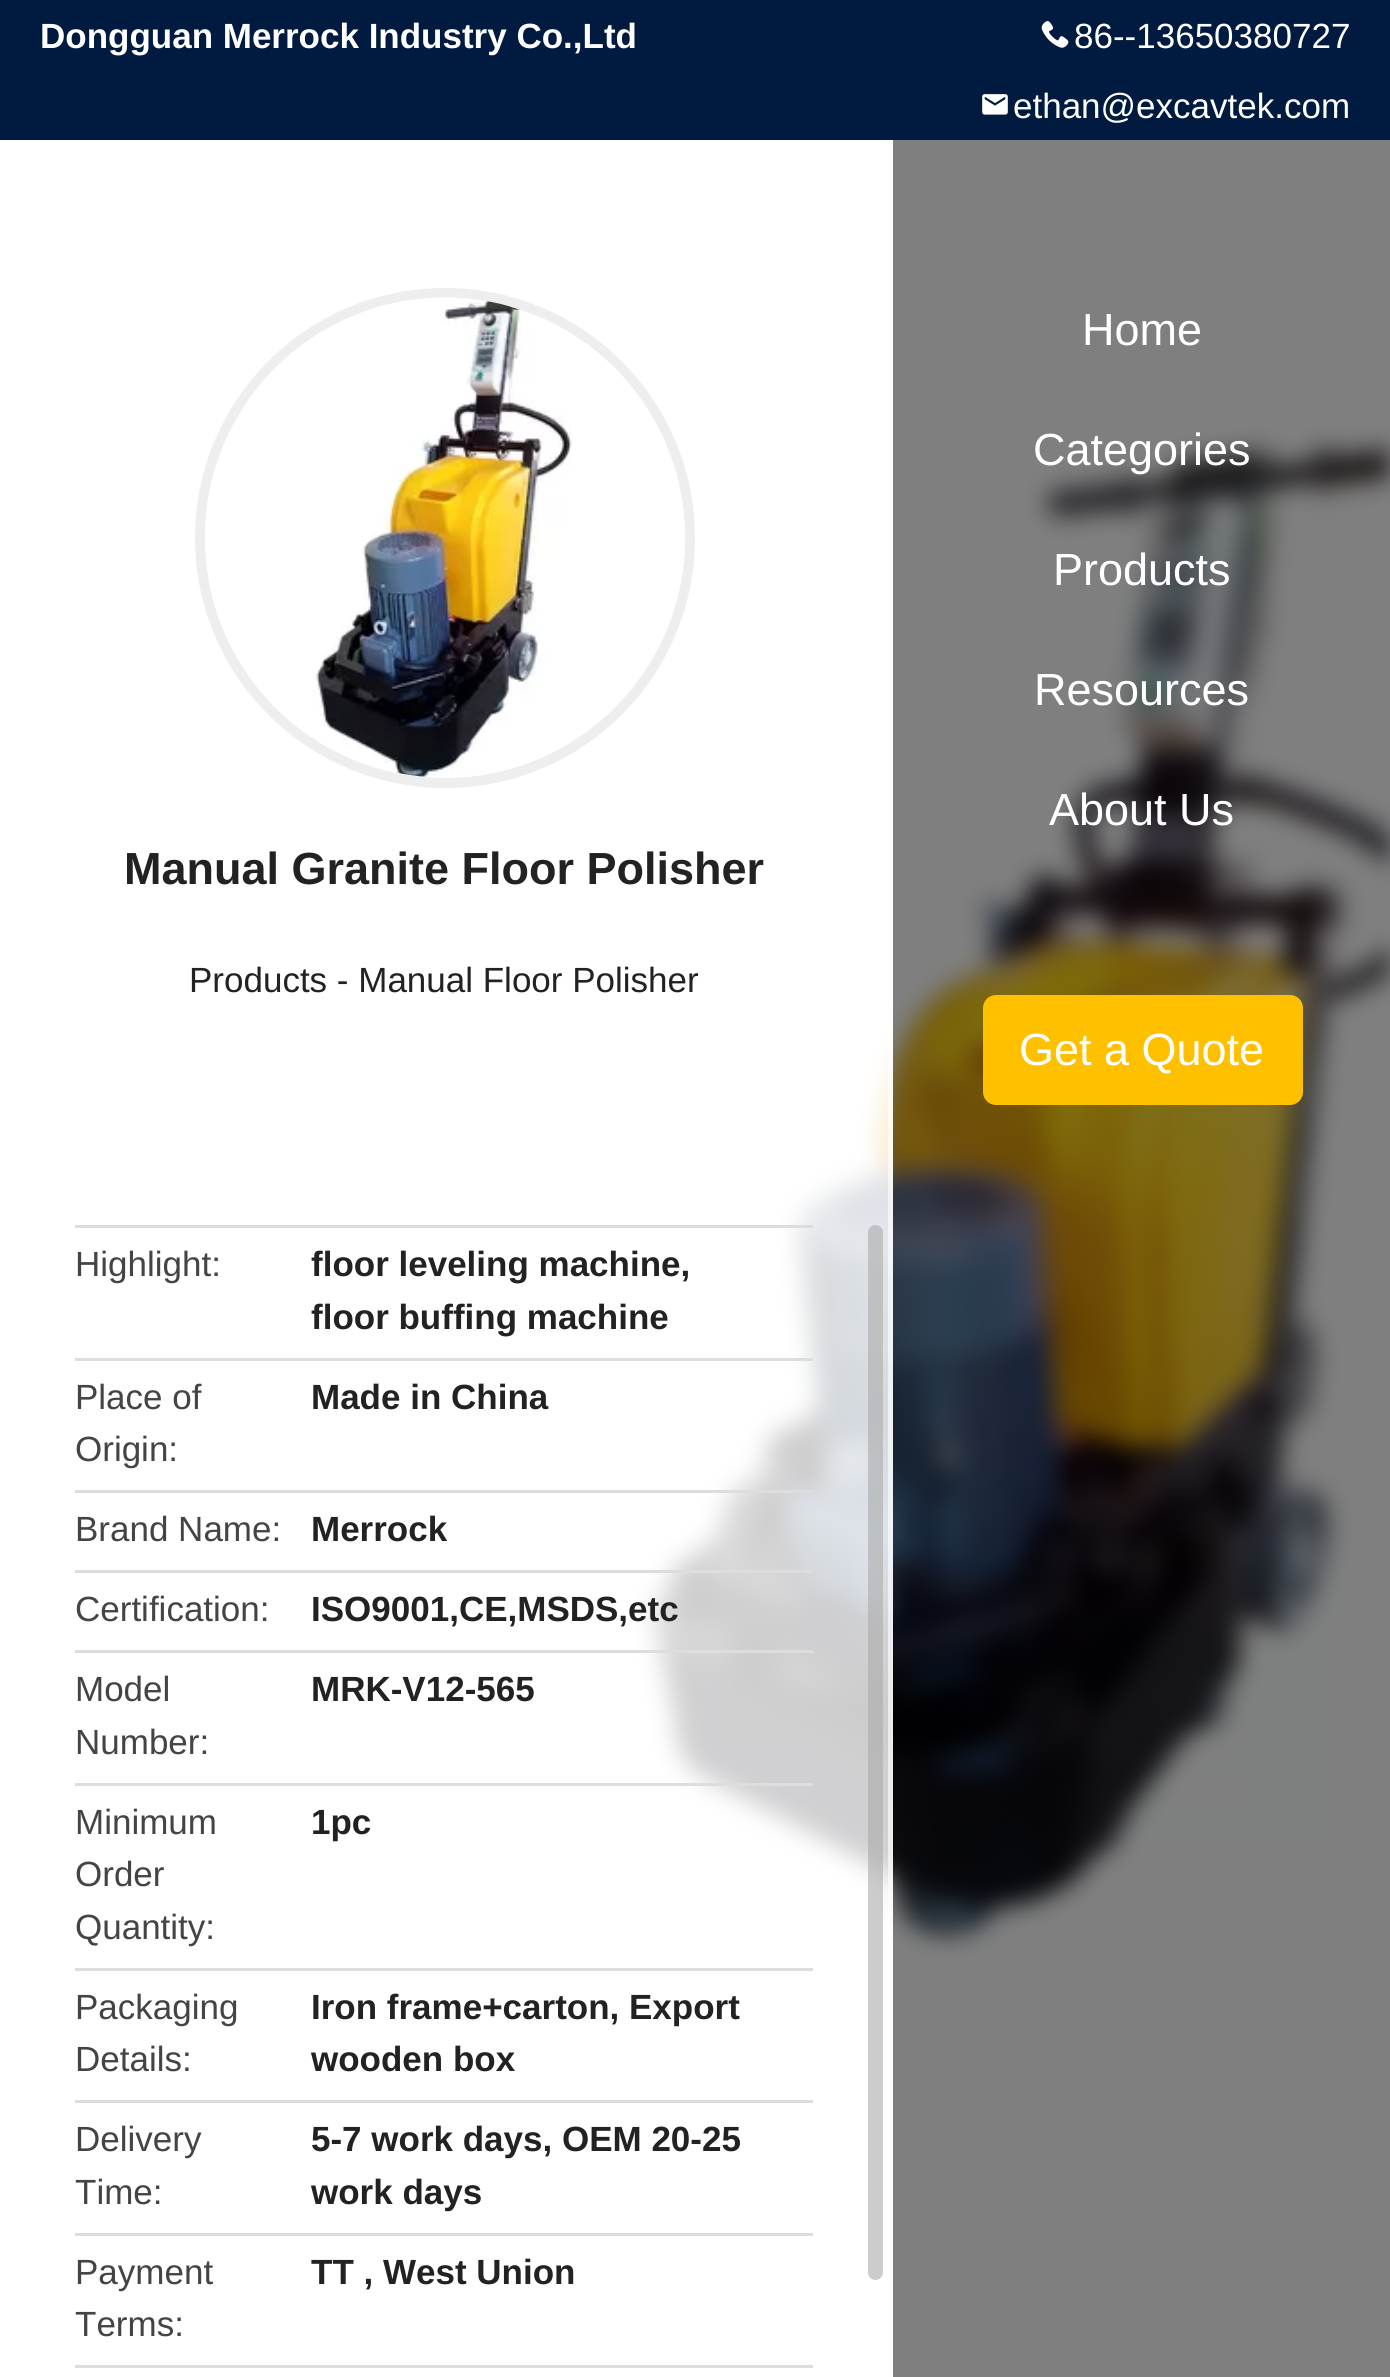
import math
import cairocffi as cairo

surface = cairo.ImageSurface(cairo.FORMAT_RGB24, 1390, 2377)
cr = cairo.Context(surface)
options = cairo.FontOptions()
options.set_hint_metrics(cairo.HINT_METRICS_OFF)
options.set_hint_style(cairo.HINT_STYLE_NONE)
cr.set_font_options(options)
cr.set_miter_limit(4)


def use_color(code):
    cr.set_source_rgb(*(v / 255 for v in bytes.fromhex(code[-6:])))


def round_rect(x, y, w, h, r):
    cr.new_sub_path()
    for i, (u, v) in enumerate([(x + w - r, y + h - r), (x + r, y + h - r), (x + r, y + r), (x + w - r, y + r)]):
        cr.arc(u, v, r, i * math.pi / 2, (i + 1) * math.pi / 2)
    cr.close_path()


def picture(path, x, y, w, h):
    cr.save()
    cr.set_source_surface(cairo.ImageSurface.create_from_png(path), x, y)
    cr.rectangle(x, y, w, h)
    cr.fill()
    cr.restore()


use_color("#ffffff")
cr.paint()
use_color("#001b3f")
cr.rectangle(0, 0, 1390, 140)
cr.fill()
cr.select_font_face("Liberation Sans", cairo.FONT_SLANT_NORMAL, cairo.FONT_WEIGHT_BOLD)
cr.set_font_size(35)
use_color("#ffffff")
cr.move_to(40, 48)
cr.show_text("Dongguan Merrock Industry Co.,Ltd")
picture("img1.png", 1041, 21, 28, 27)
cr.select_font_face("Liberation Sans")
cr.move_to(1074, 48)
cr.show_text("86--13650380727")
picture("img2.png", 982, 94, 26, 21)
cr.move_to(1013, 118)
cr.show_text("ethan@excavtek.com")
picture("img4.png", 633, 427, 757, 1530)
cr.set_source_rgba(0, 0, 0, 0.5)
cr.rectangle(893, 140, 497, 2237)
cr.fill()
cr.set_font_size(45)
use_color("#ffffff")
cr.move_to(1082, 345)
cr.show_text("Home")
cr.move_to(1033, 465)
cr.show_text("Categories")
cr.move_to(1053, 585)
cr.show_text("Products")
cr.move_to(1034, 705)
cr.show_text("Resources")
cr.move_to(1049, 825)
cr.show_text("About Us")
use_color("#ffc000")
round_rect(983, 995, 320, 110, 13)
cr.fill()
use_color("#ffffff")
cr.move_to(1019, 1065)
cr.show_text("Get a Quote")
cr.set_source_rgba(1, 1, 1, 0.8)
cr.rectangle(633, 1012, 260, 924)
cr.fill()
cr.set_source_rgba(1, 1, 1, 0.6)
cr.rectangle(888, 1032, 5, 887)
cr.fill()
cr.arc(445, 538, 245, 0, 2 * math.pi)
use_color("#eeeeee")
cr.set_line_width(10)
cr.stroke()
picture("img3.png", 205, 297, 480, 480)
cr.select_font_face("Liberation Sans", cairo.FONT_SLANT_NORMAL, cairo.FONT_WEIGHT_BOLD)
use_color("#222222")
cr.move_to(124, 884)
cr.show_text("Manual Granite Floor Polisher")
cr.select_font_face("Liberation Sans")
cr.set_font_size(35)
cr.move_to(189, 992)
cr.show_text("Products - Manual Floor Polisher")
use_color("#dddddd")
cr.rectangle(75, 1225, 738, 3)
cr.fill()
use_color("#444444")
cr.move_to(75, 1276)
cr.show_text("Highlight:")
cr.select_font_face("Liberation Sans", cairo.FONT_SLANT_NORMAL, cairo.FONT_WEIGHT_BOLD)
use_color("#222222")
cr.move_to(311, 1276)
cr.show_text("floor leveling machine,")
cr.move_to(311, 1329)
cr.show_text("floor buffing machine")
use_color("#dddddd")
cr.rectangle(75, 1358, 738, 3)
cr.fill()
cr.select_font_face("Liberation Sans")
use_color("#444444")
cr.move_to(75, 1409)
cr.show_text("Place of")
cr.move_to(75, 1461)
cr.show_text("Origin:")
cr.select_font_face("Liberation Sans", cairo.FONT_SLANT_NORMAL, cairo.FONT_WEIGHT_BOLD)
use_color("#222222")
cr.move_to(311, 1409)
cr.show_text("Made in China")
use_color("#dddddd")
cr.rectangle(75, 1490, 738, 3)
cr.fill()
cr.select_font_face("Liberation Sans")
use_color("#444444")
cr.move_to(75, 1541)
cr.show_text("Brand Name:")
cr.select_font_face("Liberation Sans", cairo.FONT_SLANT_NORMAL, cairo.FONT_WEIGHT_BOLD)
use_color("#222222")
cr.move_to(311, 1541)
cr.show_text("Merrock")
use_color("#dddddd")
cr.rectangle(75, 1570, 738, 3)
cr.fill()
cr.select_font_face("Liberation Sans")
use_color("#444444")
cr.move_to(75, 1621)
cr.show_text("Certification:")
cr.select_font_face("Liberation Sans", cairo.FONT_SLANT_NORMAL, cairo.FONT_WEIGHT_BOLD)
use_color("#222222")
cr.move_to(311, 1621)
cr.show_text("ISO9001,CE,MSDS,etc")
use_color("#dddddd")
cr.rectangle(75, 1650, 738, 3)
cr.fill()
cr.select_font_face("Liberation Sans")
use_color("#444444")
cr.move_to(75, 1701)
cr.show_text("Model")
cr.move_to(75, 1754)
cr.show_text("Number:")
cr.select_font_face("Liberation Sans", cairo.FONT_SLANT_NORMAL, cairo.FONT_WEIGHT_BOLD)
use_color("#222222")
cr.move_to(311, 1701)
cr.show_text("MRK-V12-565")
use_color("#dddddd")
cr.rectangle(75, 1783, 738, 3)
cr.fill()
cr.select_font_face("Liberation Sans")
use_color("#444444")
cr.move_to(75, 1834)
cr.show_text("Minimum")
cr.move_to(75, 1886)
cr.show_text("Order")
cr.move_to(75, 1939)
cr.show_text("Quantity:")
cr.select_font_face("Liberation Sans", cairo.FONT_SLANT_NORMAL, cairo.FONT_WEIGHT_BOLD)
use_color("#222222")
cr.move_to(311, 1834)
cr.show_text("1pc")
use_color("#dddddd")
cr.rectangle(75, 1968, 738, 3)
cr.fill()
cr.select_font_face("Liberation Sans")
use_color("#444444")
cr.move_to(75, 2019)
cr.show_text("Packaging")
cr.move_to(75, 2071)
cr.show_text("Details:")
cr.select_font_face("Liberation Sans", cairo.FONT_SLANT_NORMAL, cairo.FONT_WEIGHT_BOLD)
use_color("#222222")
cr.move_to(311, 2019)
cr.show_text("Iron frame+carton, Export")
cr.move_to(311, 2071)
cr.show_text("wooden box")
use_color("#dddddd")
cr.rectangle(75, 2100, 738, 3)
cr.fill()
cr.select_font_face("Liberation Sans")
use_color("#444444")
cr.move_to(75, 2151)
cr.show_text("Delivery")
cr.move_to(75, 2204)
cr.show_text("Time:")
cr.select_font_face("Liberation Sans", cairo.FONT_SLANT_NORMAL, cairo.FONT_WEIGHT_BOLD)
use_color("#222222")
cr.move_to(311, 2151)
cr.show_text("5-7 work days, OEM 20-25")
cr.move_to(311, 2204)
cr.show_text("work days")
use_color("#dddddd")
cr.rectangle(75, 2233, 738, 3)
cr.fill()
cr.select_font_face("Liberation Sans")
use_color("#444444")
cr.move_to(75, 2284)
cr.show_text("Payment")
cr.move_to(75, 2336)
cr.show_text("Terms:")
cr.select_font_face("Liberation Sans", cairo.FONT_SLANT_NORMAL, cairo.FONT_WEIGHT_BOLD)
use_color("#222222")
cr.move_to(311, 2284)
cr.show_text("TT , West Union")
use_color("#dddddd")
cr.rectangle(75, 2365, 738, 3)
cr.fill()
cr.set_source_rgba(0.667, 0.667, 0.667, 0.6)
round_rect(868, 1225, 15, 1055, 7.5)
cr.fill()
surface.write_to_png("result.png")
